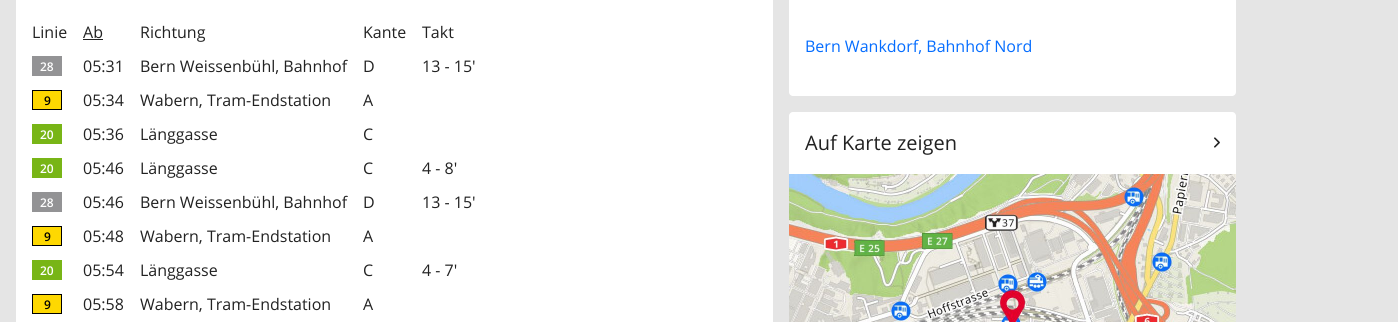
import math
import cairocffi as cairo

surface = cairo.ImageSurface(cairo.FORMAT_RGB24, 1398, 322)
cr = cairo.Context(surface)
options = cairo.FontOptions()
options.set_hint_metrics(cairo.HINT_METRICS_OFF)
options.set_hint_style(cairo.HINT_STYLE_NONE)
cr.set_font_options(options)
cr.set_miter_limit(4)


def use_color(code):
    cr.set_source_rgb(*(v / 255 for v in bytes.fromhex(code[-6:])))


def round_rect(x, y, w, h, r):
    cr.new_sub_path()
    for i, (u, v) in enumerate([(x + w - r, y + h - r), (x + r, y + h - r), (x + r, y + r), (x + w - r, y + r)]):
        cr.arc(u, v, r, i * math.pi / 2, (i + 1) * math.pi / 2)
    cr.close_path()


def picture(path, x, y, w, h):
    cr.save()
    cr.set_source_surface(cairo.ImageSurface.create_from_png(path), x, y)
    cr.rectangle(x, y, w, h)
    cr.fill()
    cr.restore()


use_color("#e5e5e5")
cr.paint()
use_color("#ffffff")
cr.rectangle(16, 0, 757, 322)
cr.fill()
cr.select_font_face("Open Sans")
cr.set_font_size(16)
use_color("#222222")
cr.move_to(32, 38)
cr.show_text("Linie")
cr.move_to(83, 38)
cr.show_text("Ab")
cr.rectangle(83, 39, 20, 1)
cr.fill()
cr.move_to(140, 38)
cr.show_text("Richtung")
cr.move_to(363, 38)
cr.show_text("Kante")
cr.move_to(422, 38)
cr.show_text("Takt")
use_color("#939395")
cr.rectangle(32, 56, 30, 20)
cr.fill()
cr.select_font_face("Open Sans SemiBold")
cr.set_font_size(12)
use_color("#ffffff")
cr.move_to(40, 71)
cr.show_text("28")
cr.select_font_face("Open Sans")
cr.set_font_size(16)
use_color("#222222")
cr.move_to(83, 72)
cr.show_text("05:31")
cr.move_to(140, 72)
cr.show_text("Bern Weissenbühl, Bahnhof")
cr.move_to(363, 72)
cr.show_text("D")
cr.move_to(422, 72)
cr.show_text("13 - 15'")
use_color("#000000")
cr.rectangle(32, 90, 30, 20)
cr.fill()
use_color("#fed801")
cr.rectangle(33, 91, 28, 18)
cr.fill()
cr.select_font_face("Open Sans SemiBold")
cr.set_font_size(12)
use_color("#000000")
cr.move_to(44, 105)
cr.show_text("9")
cr.select_font_face("Open Sans")
cr.set_font_size(16)
use_color("#222222")
cr.move_to(83, 106)
cr.show_text("05:34")
cr.move_to(140, 106)
cr.show_text("Wabern, Tram-Endstation")
cr.move_to(363, 106)
cr.show_text("A")
use_color("#78b516")
cr.rectangle(32, 124, 30, 20)
cr.fill()
cr.select_font_face("Open Sans SemiBold")
cr.set_font_size(12)
use_color("#ffffff")
cr.move_to(40, 139)
cr.show_text("20")
cr.select_font_face("Open Sans")
cr.set_font_size(16)
use_color("#222222")
cr.move_to(83, 140)
cr.show_text("05:36")
cr.move_to(140, 140)
cr.show_text("Länggasse")
cr.move_to(363, 140)
cr.show_text("C")
use_color("#78b516")
cr.rectangle(32, 158, 30, 20)
cr.fill()
cr.select_font_face("Open Sans SemiBold")
cr.set_font_size(12)
use_color("#ffffff")
cr.move_to(40, 173)
cr.show_text("20")
cr.select_font_face("Open Sans")
cr.set_font_size(16)
use_color("#222222")
cr.move_to(83, 174)
cr.show_text("05:46")
cr.move_to(140, 174)
cr.show_text("Länggasse")
cr.move_to(363, 174)
cr.show_text("C")
cr.move_to(422, 174)
cr.show_text("4 - 8'")
use_color("#939395")
cr.rectangle(32, 192, 30, 20)
cr.fill()
cr.select_font_face("Open Sans SemiBold")
cr.set_font_size(12)
use_color("#ffffff")
cr.move_to(40, 207)
cr.show_text("28")
cr.select_font_face("Open Sans")
cr.set_font_size(16)
use_color("#222222")
cr.move_to(83, 208)
cr.show_text("05:46")
cr.move_to(140, 208)
cr.show_text("Bern Weissenbühl, Bahnhof")
cr.move_to(363, 208)
cr.show_text("D")
cr.move_to(422, 208)
cr.show_text("13 - 15'")
use_color("#000000")
cr.rectangle(32, 226, 30, 20)
cr.fill()
use_color("#fed801")
cr.rectangle(33, 227, 28, 18)
cr.fill()
cr.select_font_face("Open Sans SemiBold")
cr.set_font_size(12)
use_color("#000000")
cr.move_to(44, 241)
cr.show_text("9")
cr.select_font_face("Open Sans")
cr.set_font_size(16)
use_color("#222222")
cr.move_to(83, 242)
cr.show_text("05:48")
cr.move_to(140, 242)
cr.show_text("Wabern, Tram-Endstation")
cr.move_to(363, 242)
cr.show_text("A")
use_color("#78b516")
cr.rectangle(32, 260, 30, 20)
cr.fill()
cr.select_font_face("Open Sans SemiBold")
cr.set_font_size(12)
use_color("#ffffff")
cr.move_to(40, 275)
cr.show_text("20")
cr.select_font_face("Open Sans")
cr.set_font_size(16)
use_color("#222222")
cr.move_to(83, 276)
cr.show_text("05:54")
cr.move_to(140, 276)
cr.show_text("Länggasse")
cr.move_to(363, 276)
cr.show_text("C")
cr.move_to(422, 276)
cr.show_text("4 - 7'")
use_color("#000000")
cr.rectangle(32, 294, 30, 20)
cr.fill()
use_color("#fed801")
cr.rectangle(33, 295, 28, 18)
cr.fill()
cr.select_font_face("Open Sans SemiBold")
cr.set_font_size(12)
use_color("#000000")
cr.move_to(44, 309)
cr.show_text("9")
cr.select_font_face("Open Sans")
cr.set_font_size(16)
use_color("#222222")
cr.move_to(83, 310)
cr.show_text("05:58")
cr.move_to(140, 310)
cr.show_text("Wabern, Tram-Endstation")
cr.move_to(363, 310)
cr.show_text("A")
use_color("#ffffff")
round_rect(789, -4, 447, 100, 4)
cr.fill()
use_color("#056dff")
cr.move_to(805, 52)
cr.show_text("Bern Wankdorf, Bahnhof Nord")
use_color("#ffffff")
round_rect(789, 112, 447, 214, 4)
cr.fill()
cr.set_font_size(20)
use_color("#222222")
cr.move_to(805, 150)
cr.show_text("Auf Karte zeigen")
picture("img1.png", 1214, 137, 6, 11)
picture("img2.png", 789, 174, 447, 148)
surface.write_to_png("result.png")
